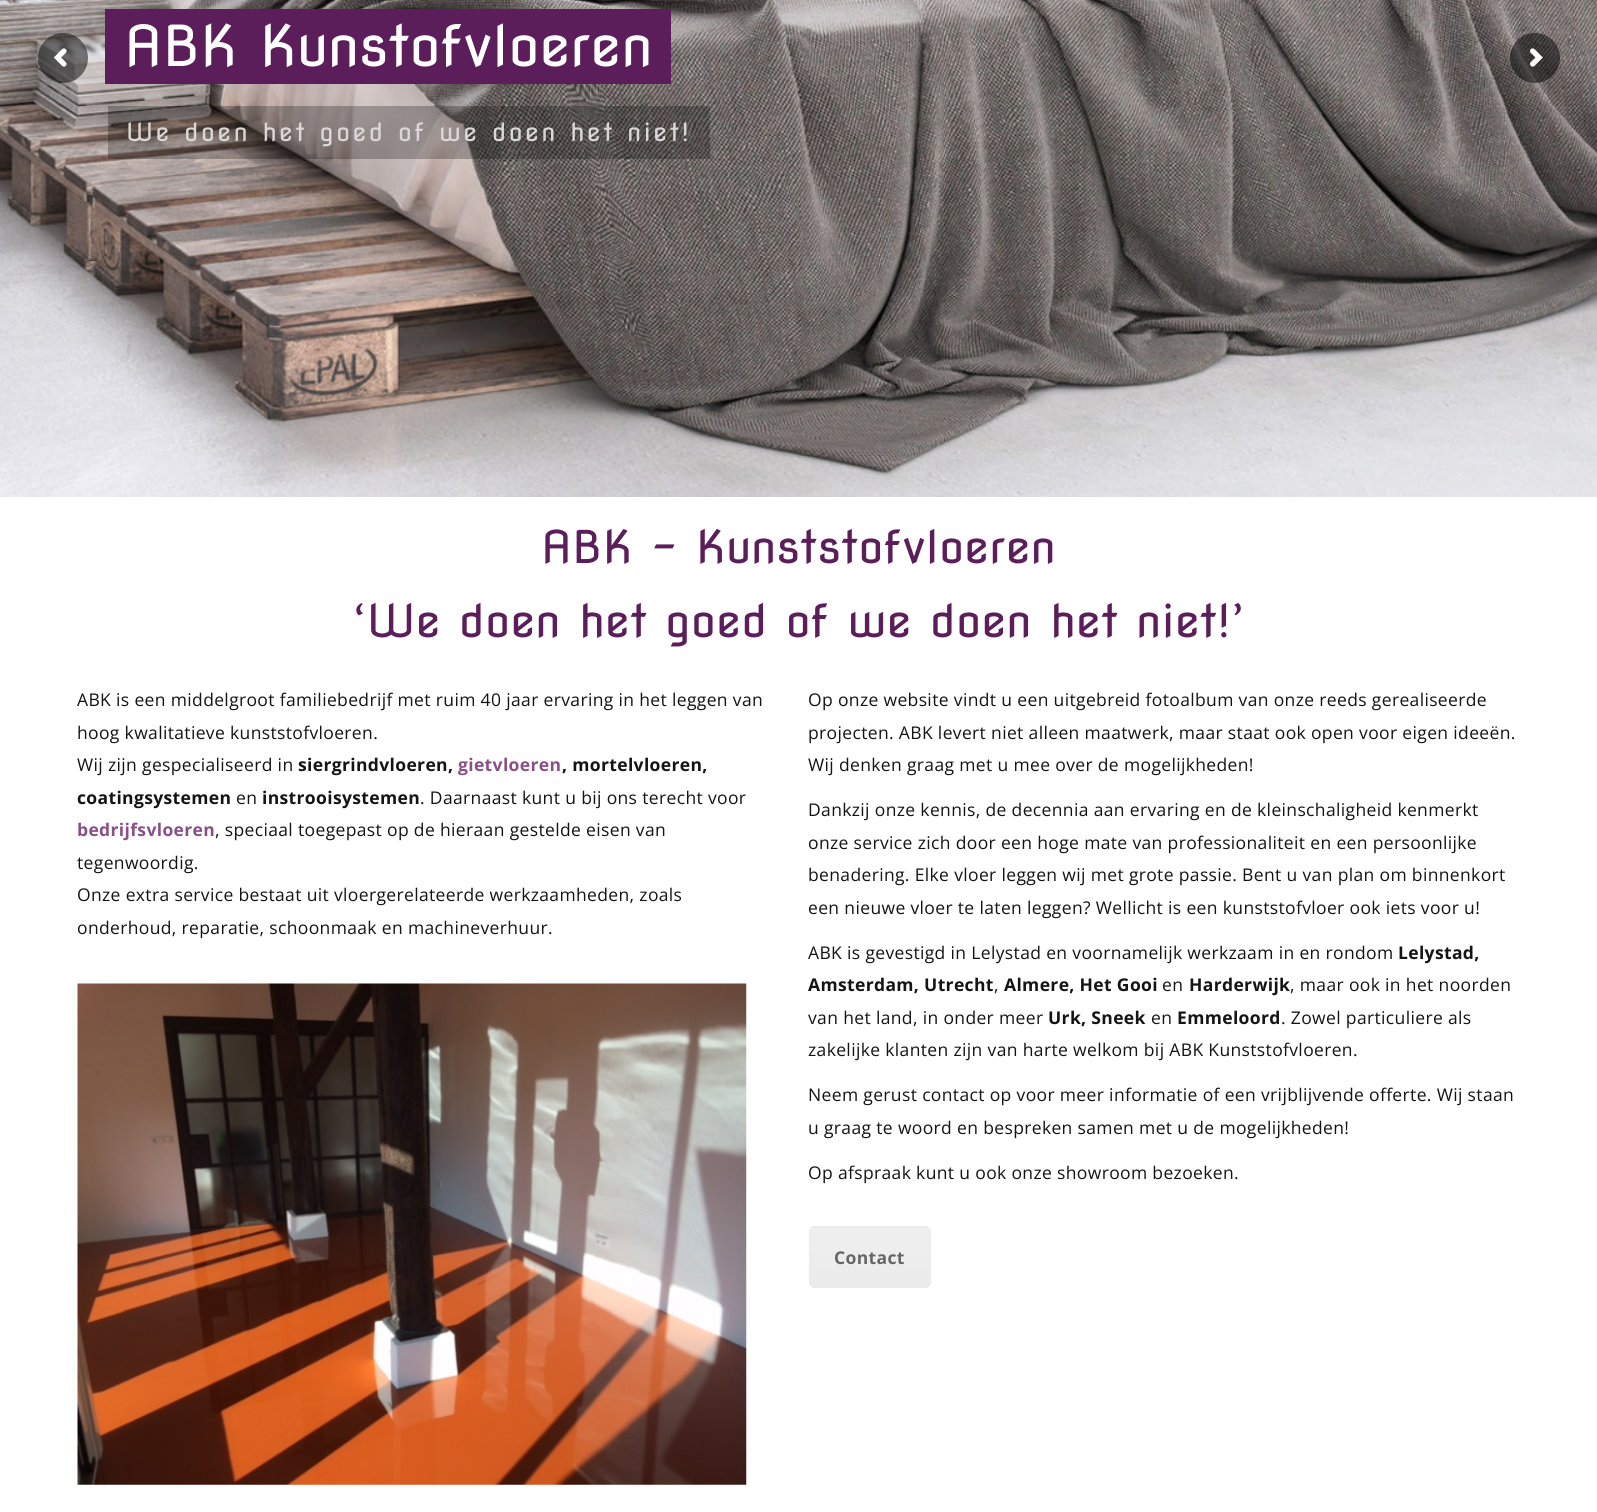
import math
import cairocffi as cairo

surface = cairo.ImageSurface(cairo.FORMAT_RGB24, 1597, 1512)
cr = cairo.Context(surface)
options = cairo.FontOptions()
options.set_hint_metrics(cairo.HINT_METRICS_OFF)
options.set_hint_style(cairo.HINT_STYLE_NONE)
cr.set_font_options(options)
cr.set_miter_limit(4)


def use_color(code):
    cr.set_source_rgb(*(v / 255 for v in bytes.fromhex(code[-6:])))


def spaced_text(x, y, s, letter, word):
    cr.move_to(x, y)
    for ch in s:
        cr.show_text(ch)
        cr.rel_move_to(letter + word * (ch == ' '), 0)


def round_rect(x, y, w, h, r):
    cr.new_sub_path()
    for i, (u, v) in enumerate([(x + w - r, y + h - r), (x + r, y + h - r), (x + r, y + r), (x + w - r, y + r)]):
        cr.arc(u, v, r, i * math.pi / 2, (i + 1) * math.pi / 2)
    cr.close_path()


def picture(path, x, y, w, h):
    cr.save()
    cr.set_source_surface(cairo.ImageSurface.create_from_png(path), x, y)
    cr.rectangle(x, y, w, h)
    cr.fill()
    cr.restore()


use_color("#ffffff")
cr.paint()
picture("img2.png", 0, 0, 1597, 497)
cr.set_source_rgba(0, 0, 0, 0.5)
cr.arc(63, 58, 25, 0, 2 * math.pi)
cr.fill()
picture("img1.png", 53, 48, 14, 19)
use_color("#5c1e5a")
cr.rectangle(105, 9, 566, 75)
cr.fill()
cr.select_font_face("Nova Flat")
cr.set_font_size(56.25)
use_color("#ffffff")
cr.move_to(124, 66)
cr.show_text("ABK Kunstofvloeren")
cr.set_source_rgba(0, 0, 0, 0.26)
cr.rectangle(108, 106, 602, 53)
cr.fill()
cr.set_font_size(25)
use_color("#dad8d7")
spaced_text(126, 141, "We doen het goed of we doen het niet!", 2.5, 0)
cr.set_source_rgba(0, 0, 0, 0.5)
cr.new_path()
cr.arc(1535, 58, 25, 0, 2 * math.pi)
cr.fill()
picture("img3.png", 1530, 48, 13, 19)
cr.set_font_size(45)
use_color("#5c1e5a")
spaced_text(541, 563, "ABK - Kunststofvloeren", 0.35, 0)
spaced_text(353, 637, "‘We doen het goed of we doen het niet!’", 0.35, 0)
cr.select_font_face("Open Sans")
cr.set_font_size(17.5)
use_color("#141414")
spaced_text(77, 706, "ABK is een middelgroot familiebedrijf met ruim 40 jaar ervaring in het leggen van", 0.35, 0)
spaced_text(77, 739, "hoog kwalitatieve kunststofvloeren.", 0.35, 0)
spaced_text(77, 771, "Wij zijn gespecialiseerd in", 0.35, 0)
cr.select_font_face("Open Sans", cairo.FONT_SLANT_NORMAL, cairo.FONT_WEIGHT_BOLD)
spaced_text(298, 771, "siergrindvloeren,", 0.35, 0)
use_color("#885086")
spaced_text(458, 771, "gietvloeren", 0.35, 0)
use_color("#141414")
spaced_text(562, 771, ", mortelvloeren,", 0.35, 0)
spaced_text(77, 804, "coatingsystemen", 0.35, 0)
cr.select_font_face("Open Sans")
spaced_text(236, 804, "en", 0.35, 0)
cr.select_font_face("Open Sans", cairo.FONT_SLANT_NORMAL, cairo.FONT_WEIGHT_BOLD)
spaced_text(262, 804, "instrooisystemen", 0.35, 0)
cr.select_font_face("Open Sans")
spaced_text(420, 804, ". Daarnaast kunt u bij ons terecht voor", 0.35, 0)
cr.select_font_face("Open Sans", cairo.FONT_SLANT_NORMAL, cairo.FONT_WEIGHT_BOLD)
use_color("#885086")
spaced_text(77, 836, "bedrijfsvloeren", 0.35, 0)
cr.select_font_face("Open Sans")
use_color("#141414")
spaced_text(215, 836, ", speciaal toegepast op de hieraan gestelde eisen van", 0.35, 0)
spaced_text(77, 869, "tegenwoordig.", 0.35, 0)
spaced_text(77, 901, "Onze extra service bestaat uit vloergerelateerde werkzaamheden, zoals", 0.35, 0)
spaced_text(77, 934, "onderhoud, reparatie, schoonmaak en machineverhuur.", 0.35, 0)
picture("img4.png", 77, 983, 670, 502)
spaced_text(808, 706, "Op onze website vindt u een uitgebreid fotoalbum van onze reeds gerealiseerde", 0.35, 0)
spaced_text(808, 739, "projecten. ABK levert niet alleen maatwerk, maar staat ook open voor eigen ideeën.", 0.35, 0)
spaced_text(808, 771, "Wij denken graag met u mee over de mogelijkheden!", 0.35, 0)
spaced_text(808, 816, "Dankzij onze kennis, de decennia aan ervaring en de kleinschaligheid kenmerkt", 0.35, 0)
spaced_text(808, 849, "onze service zich door een hoge mate van professionaliteit en een persoonlijke", 0.35, 0)
spaced_text(808, 881, "benadering. Elke vloer leggen wij met grote passie. Bent u van plan om binnenkort", 0.35, 0)
spaced_text(808, 914, "een nieuwe vloer te laten leggen? Wellicht is een kunststofvloer ook iets voor u!", 0.35, 0)
spaced_text(808, 959, "ABK is gevestigd in Lelystad en voornamelijk werkzaam in en rondom", 0.35, 0)
cr.select_font_face("Open Sans", cairo.FONT_SLANT_NORMAL, cairo.FONT_WEIGHT_BOLD)
spaced_text(1398, 959, "Lelystad,", 0.35, 0)
spaced_text(808, 991, "Amsterdam, Utrecht", 0.35, 0)
cr.select_font_face("Open Sans")
spaced_text(994, 991, ",", 0.35, 0)
cr.select_font_face("Open Sans", cairo.FONT_SLANT_NORMAL, cairo.FONT_WEIGHT_BOLD)
spaced_text(1004, 991, "Almere, Het Gooi", 0.35, 0)
cr.select_font_face("Open Sans")
spaced_text(1162, 991, "en", 0.35, 0)
cr.select_font_face("Open Sans", cairo.FONT_SLANT_NORMAL, cairo.FONT_WEIGHT_BOLD)
spaced_text(1189, 991, "Harderwijk", 0.35, 0)
cr.select_font_face("Open Sans")
spaced_text(1290, 991, ", maar ook in het noorden", 0.35, 0)
spaced_text(808, 1024, "van het land, in onder meer", 0.35, 0)
cr.select_font_face("Open Sans", cairo.FONT_SLANT_NORMAL, cairo.FONT_WEIGHT_BOLD)
spaced_text(1048, 1024, "Urk, Sneek", 0.35, 0)
cr.select_font_face("Open Sans")
spaced_text(1151, 1024, "en", 0.35, 0)
cr.select_font_face("Open Sans", cairo.FONT_SLANT_NORMAL, cairo.FONT_WEIGHT_BOLD)
spaced_text(1177, 1024, "Emmeloord", 0.35, 0)
cr.select_font_face("Open Sans")
spaced_text(1281, 1024, ". Zowel particuliere als", 0.35, 0)
spaced_text(808, 1056, "zakelijke klanten zijn van harte welkom bij ABK Kunststofvloeren.", 0.35, 0)
spaced_text(808, 1101, "Neem gerust contact op voor meer informatie of een vrijblijvende offerte. Wij staan", 0.35, 0)
spaced_text(808, 1134, "u graag te woord en bespreken samen met u de mogelijkheden!", 0.35, 0)
spaced_text(808, 1179, "Op afspraak kunt u ook onze showroom bezoeken.", 0.35, 0)
use_color("#ebebeb")
round_rect(809, 1226, 122, 62, 6)
cr.fill()
cr.save()
round_rect(809, 1226, 122, 62, 6)
cr.clip()
gradient = cairo.LinearGradient(870, 1228, 870, 1286)
gradient.add_color_stop_rgba(0, 1, 1, 1, 0.2)
gradient.add_color_stop_rgba(1, 1, 1, 1, 0.01)
cr.set_source(gradient)
cr.rectangle(809, 1228, 122, 54)
cr.fill()
cr.restore()
round_rect(809.5, 1226.5, 121, 61, 5.5)
cr.set_line_width(1)
cr.stroke()
cr.select_font_face("Open Sans", cairo.FONT_SLANT_NORMAL, cairo.FONT_WEIGHT_BOLD)
use_color("#666666")
spaced_text(834, 1264, "Contact", 0.35, 0)
surface.write_to_png("result.png")
